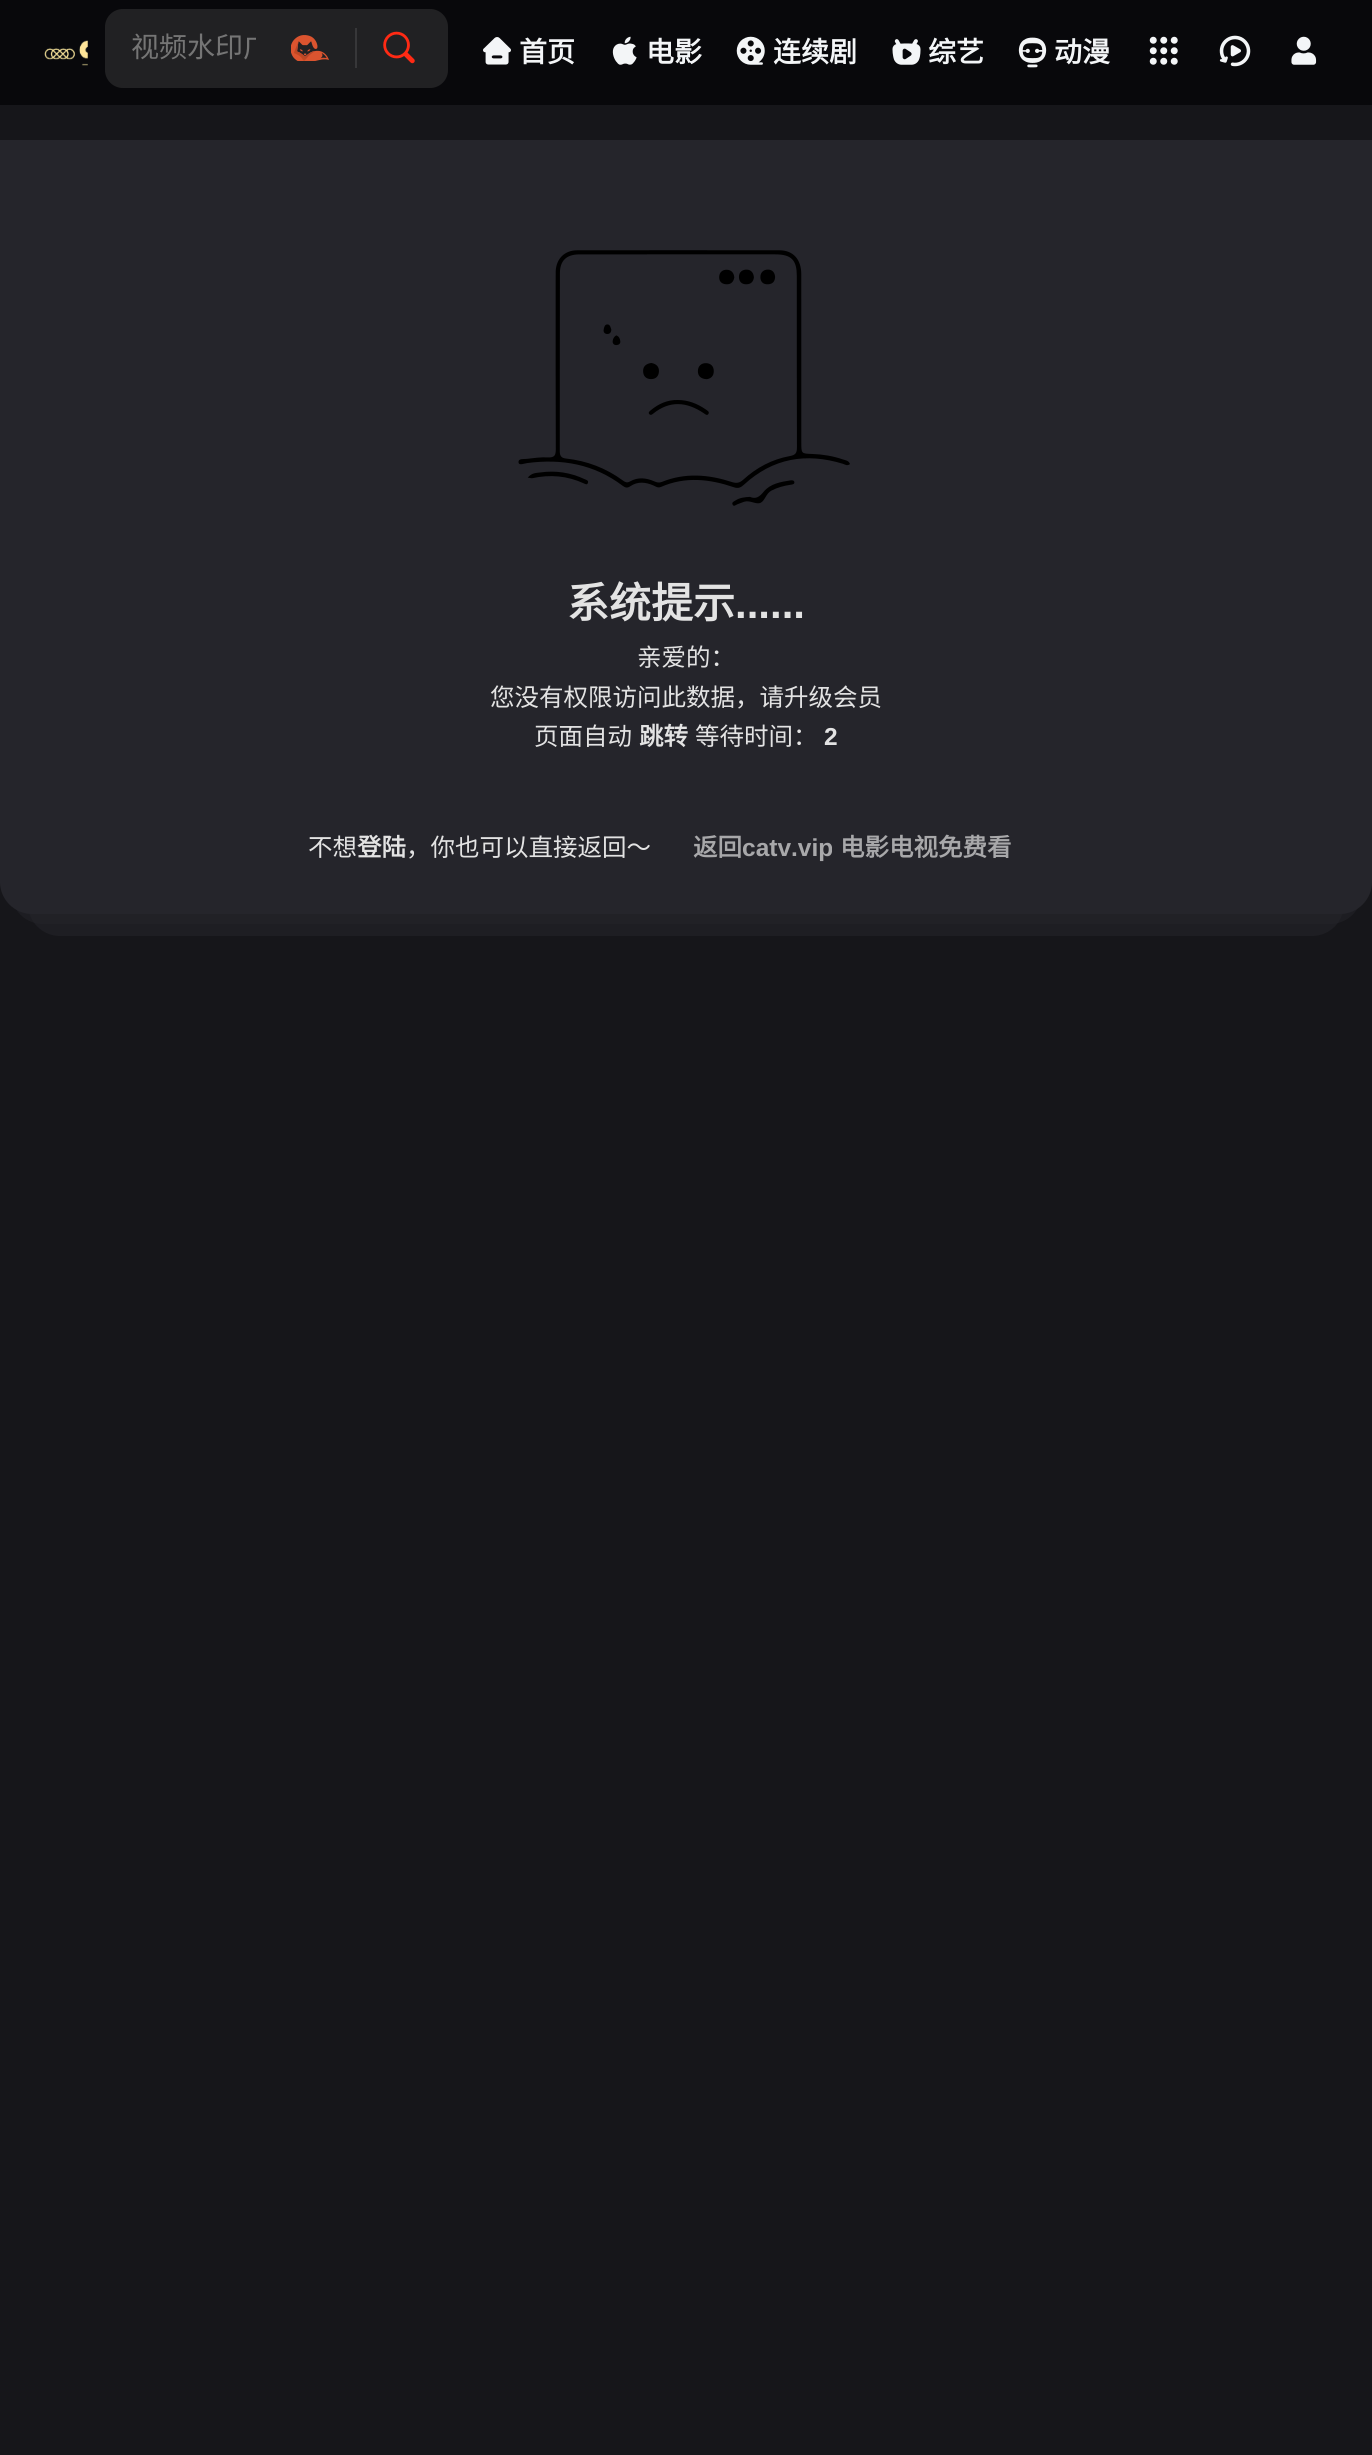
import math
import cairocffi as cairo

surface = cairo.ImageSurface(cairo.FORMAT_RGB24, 1372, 2455)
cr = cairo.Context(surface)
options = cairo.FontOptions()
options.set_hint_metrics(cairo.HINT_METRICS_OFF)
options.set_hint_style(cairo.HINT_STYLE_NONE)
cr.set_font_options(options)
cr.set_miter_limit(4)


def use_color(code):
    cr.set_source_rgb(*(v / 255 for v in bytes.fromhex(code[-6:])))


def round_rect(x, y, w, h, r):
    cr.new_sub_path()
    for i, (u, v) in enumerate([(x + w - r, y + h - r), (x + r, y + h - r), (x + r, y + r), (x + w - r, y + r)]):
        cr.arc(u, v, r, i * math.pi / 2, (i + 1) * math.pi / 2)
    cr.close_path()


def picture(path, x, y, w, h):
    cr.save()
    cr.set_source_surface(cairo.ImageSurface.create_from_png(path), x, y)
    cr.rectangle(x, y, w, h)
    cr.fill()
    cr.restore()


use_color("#16161a")
cr.paint()
use_color("#08080b")
cr.rectangle(0, 0, 1372, 105)
cr.fill()
picture("img1.png", 44, 40, 44, 26)
use_color("#212123")
cr.new_path()
cr.move_to(123, 9)
cr.line_to(273, 9)
cr.line_to(273, 88)
cr.line_to(123, 88)
cr.curve_to(113, 88, 105, 80, 105, 70)
cr.line_to(105, 27)
cr.curve_to(105, 17, 113, 9, 123, 9)
cr.close_path()
cr.fill()
cr.save()
cr.rectangle(131, 25, 125, 42)
cr.clip()
cr.select_font_face("Noto Sans CJK SC")
cr.set_font_size(28)
use_color("#757575")
cr.move_to(131, 57)
cr.show_text("视频水印广")
cr.restore()
cr.rectangle(273, 9, 110, 79)
cr.fill()
picture("img2.png", 291, 35, 38, 26)
use_color("#373739")
cr.rectangle(355, 28, 2, 40)
cr.fill()
use_color("#212123")
cr.new_path()
cr.move_to(383, 9)
cr.line_to(430, 9)
cr.curve_to(440, 9, 448, 17, 448, 27)
cr.line_to(448, 70)
cr.curve_to(448, 80, 440, 88, 430, 88)
cr.line_to(383, 88)
cr.close_path()
cr.fill()
picture("img3.png", 383, 31, 32, 33)
picture("img4.png", 483, 37, 28, 28)
cr.select_font_face("Noto Sans CJK SC", cairo.FONT_SLANT_NORMAL, cairo.FONT_WEIGHT_BOLD)
cr.set_font_size(28)
use_color("#f3f5f7")
cr.move_to(519, 62)
cr.show_text("首页")
picture("img5.png", 612, 36, 25, 29)
cr.move_to(646, 62)
cr.show_text("电影")
picture("img6.png", 736, 36, 29, 29)
cr.move_to(773, 62)
cr.show_text("连续剧")
picture("img7.png", 892, 39, 29, 26)
cr.move_to(928, 62)
cr.show_text("综艺")
picture("img8.png", 1018, 37, 29, 31)
cr.move_to(1054, 62)
cr.show_text("动漫")
picture("img9.png", 1149, 36, 29, 29)
picture("img10.png", 1219, 35, 32, 32)
picture("img11.png", 1291, 36, 26, 29)
use_color("#1e1e23")
round_rect(28, 163, 1316, 773, 32)
cr.fill()
cr.set_source_rgba(0.145, 0.145, 0.169, 0.5)
round_rect(11, 151, 1351, 773, 32)
cr.fill()
use_color("#25252b")
cr.new_path()
cr.move_to(0, 140)
cr.line_to(1372, 140)
cr.line_to(1372, 882)
cr.curve_to(1372, 899.5, 1357.5, 914, 1340, 914)
cr.line_to(32, 914)
cr.curve_to(14.5, 914, 0, 899.5, 0, 882)
cr.close_path()
cr.fill()
picture("img12.png", 518, 250, 332, 256)
cr.set_font_size(42)
use_color("#e3e3e3")
cr.move_to(567, 618)
cr.show_text("系统提示")
cr.select_font_face("Liberation Sans", cairo.FONT_SLANT_NORMAL, cairo.FONT_WEIGHT_BOLD)
cr.move_to(735, 618)
cr.show_text("......")
cr.select_font_face("Noto Sans CJK SC")
cr.set_font_size(24.5)
cr.move_to(637, 666)
cr.show_text("亲爱的：")
cr.move_to(490, 706)
cr.show_text("您没有权限访问此数据，请升级会员")
cr.move_to(534, 745)
cr.show_text("页面自动")
cr.select_font_face("Noto Sans CJK SC", cairo.FONT_SLANT_NORMAL, cairo.FONT_WEIGHT_BOLD)
cr.move_to(639, 745)
cr.show_text("跳转")
cr.select_font_face("Noto Sans CJK SC")
cr.move_to(695, 745)
cr.show_text("等待时间：")
cr.select_font_face("Liberation Sans", cairo.FONT_SLANT_NORMAL, cairo.FONT_WEIGHT_BOLD)
cr.move_to(824, 745)
cr.show_text("2")
cr.select_font_face("Noto Sans CJK SC")
cr.move_to(308, 856)
cr.show_text("不想")
cr.select_font_face("Noto Sans CJK SC", cairo.FONT_SLANT_NORMAL, cairo.FONT_WEIGHT_BOLD)
cr.move_to(357, 856)
cr.show_text("登陆")
cr.select_font_face("Noto Sans CJK SC")
cr.move_to(406, 856)
cr.show_text("，你也可以直接返回～")
cr.select_font_face("Noto Sans CJK SC", cairo.FONT_SLANT_NORMAL, cairo.FONT_WEIGHT_BOLD)
use_color("#a8a8aa")
cr.move_to(693, 856)
cr.show_text("返回")
cr.select_font_face("Liberation Sans", cairo.FONT_SLANT_NORMAL, cairo.FONT_WEIGHT_BOLD)
cr.move_to(742, 856)
cr.show_text("catv.vip")
cr.select_font_face("Noto Sans CJK SC", cairo.FONT_SLANT_NORMAL, cairo.FONT_WEIGHT_BOLD)
cr.move_to(840, 856)
cr.show_text("电影电视免费看")
surface.write_to_png("result.png")
